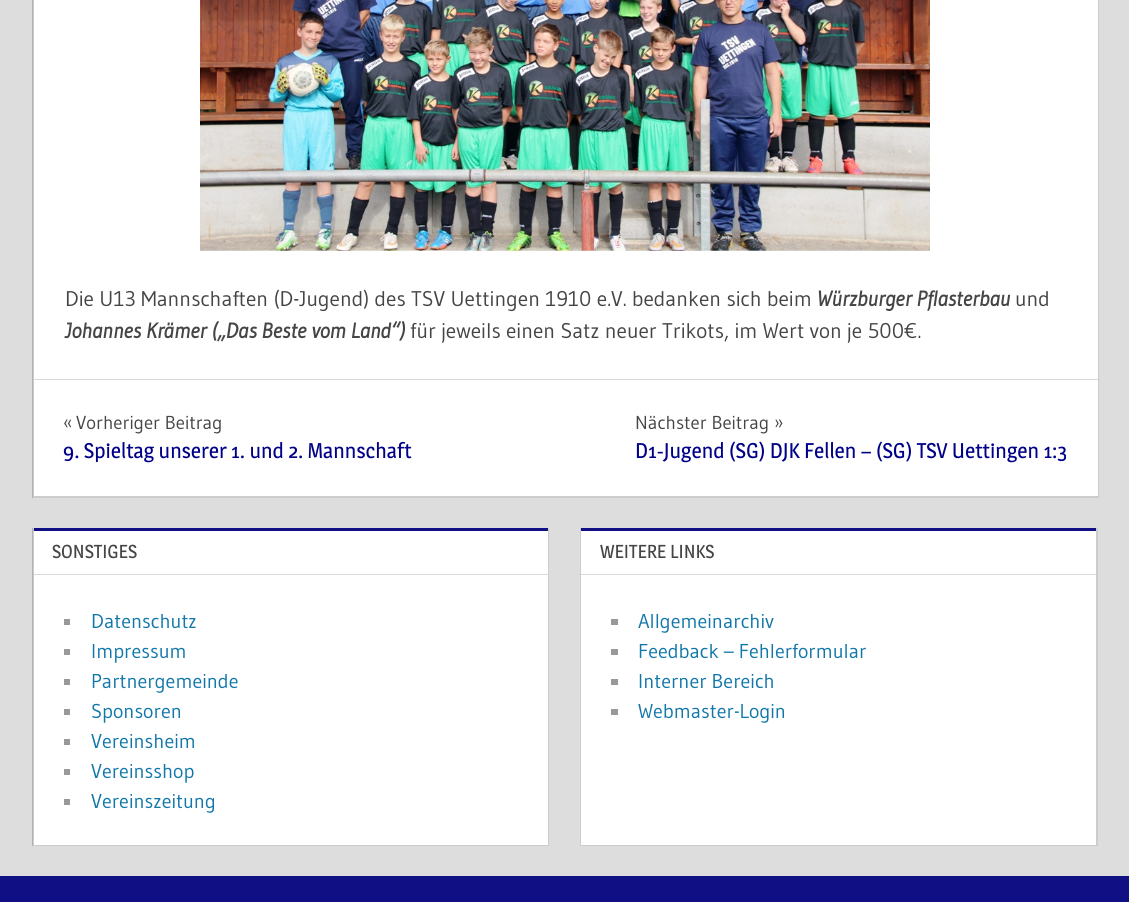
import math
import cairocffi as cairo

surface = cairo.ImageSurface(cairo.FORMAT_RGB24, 1129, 902)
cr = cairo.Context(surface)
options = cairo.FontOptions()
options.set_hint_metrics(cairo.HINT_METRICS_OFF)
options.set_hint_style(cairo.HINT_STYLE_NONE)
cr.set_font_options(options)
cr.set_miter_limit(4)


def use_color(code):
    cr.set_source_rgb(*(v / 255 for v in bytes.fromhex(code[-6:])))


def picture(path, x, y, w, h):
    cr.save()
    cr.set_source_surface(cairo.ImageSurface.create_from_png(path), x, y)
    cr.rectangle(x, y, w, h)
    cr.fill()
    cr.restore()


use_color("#dddddd")
cr.paint()
use_color("#ffffff")
cr.rectangle(33, 0, 1066, 498)
cr.fill()
use_color("#cccccc")
cr.new_path()
cr.move_to(1099, -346)
cr.line_to(1099, 498)
cr.line_to(1098, 496)
cr.line_to(1098, -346)
cr.close_path()
cr.fill()
cr.set_source_rgba(0, 0, 0, 0.2)
cr.new_path()
cr.move_to(1099, 498)
cr.line_to(32, 498)
cr.line_to(34, 496)
cr.line_to(1098, 496)
cr.close_path()
cr.fill()
cr.new_path()
cr.move_to(32, 498)
cr.line_to(32, -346)
cr.line_to(34, -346)
cr.line_to(34, 496)
cr.close_path()
cr.fill()
picture("img1.png", 200, 0, 730, 251)
cr.select_font_face("Gudea")
cr.set_font_size(21.25)
use_color("#454545")
cr.move_to(65, 306)
cr.show_text("Die U13 Mannschaften (D-Jugend) des TSV Uettingen 1910 e.V. bedanken sich beim")
cr.select_font_face("Gudea", cairo.FONT_SLANT_ITALIC, cairo.FONT_WEIGHT_BOLD)
cr.move_to(817, 306)
cr.show_text("Würzburger Pflasterbau")
cr.select_font_face("Gudea")
cr.move_to(1015, 306)
cr.show_text("und")
cr.select_font_face("Gudea", cairo.FONT_SLANT_ITALIC, cairo.FONT_WEIGHT_BOLD)
cr.move_to(65, 338)
cr.show_text("Johannes Krämer („Das Beste vom Land“)")
cr.select_font_face("Gudea")
cr.move_to(410, 338)
cr.show_text("für jeweils einen Satz neuer Trikots, im Wert von je 500€.")
use_color("#d9d9d9")
cr.rectangle(34, 379, 1064, 1)
cr.fill()
cr.set_font_size(18.75)
use_color("#454545")
cr.move_to(63, 429)
cr.show_text("«")
cr.move_to(76, 429)
cr.show_text("Vorheriger Beitrag")
cr.select_font_face("Magra")
cr.set_font_size(21.25)
use_color("#000088")
cr.move_to(63, 458)
cr.show_text("9. Spieltag unserer 1. und 2. Mannschaft")
cr.select_font_face("Gudea")
cr.set_font_size(18.75)
use_color("#454545")
cr.move_to(635, 429)
cr.show_text("Nächster Beitrag")
cr.move_to(774, 429)
cr.show_text("»")
cr.select_font_face("Magra")
cr.set_font_size(21.25)
use_color("#000088")
cr.move_to(635, 458)
cr.show_text("D1-Jugend (SG) DJK Fellen – (SG) TSV Uettingen 1:3")
use_color("#ffffff")
cr.rectangle(33, 528, 516, 318)
cr.fill()
use_color("#101084")
cr.rectangle(34, 528, 514, 3)
cr.fill()
use_color("#cccccc")
cr.new_path()
cr.move_to(549, 528)
cr.line_to(549, 846)
cr.line_to(548, 845)
cr.line_to(548, 528)
cr.close_path()
cr.fill()
cr.set_source_rgba(0, 0, 0, 0.2)
cr.new_path()
cr.move_to(549, 846)
cr.line_to(32, 846)
cr.line_to(34, 845)
cr.line_to(548, 845)
cr.close_path()
cr.fill()
cr.new_path()
cr.move_to(32, 846)
cr.line_to(32, 528)
cr.line_to(34, 528)
cr.line_to(34, 845)
cr.close_path()
cr.fill()
use_color("#d9d9d9")
cr.rectangle(34, 574, 514, 1)
cr.fill()
cr.set_font_size(18.75)
use_color("#454545")
cr.move_to(52, 558)
cr.show_text("SONSTIGES")
use_color("#999999")
cr.rectangle(64, 619, 6, 6)
cr.fill()
cr.select_font_face("Gudea")
cr.set_font_size(20)
use_color("#1177aa")
cr.move_to(91, 628)
cr.show_text("Datenschutz")
use_color("#999999")
cr.rectangle(64, 649, 6, 6)
cr.fill()
use_color("#1177aa")
cr.move_to(91, 658)
cr.show_text("Impressum")
use_color("#999999")
cr.rectangle(64, 679, 6, 6)
cr.fill()
use_color("#1177aa")
cr.move_to(91, 688)
cr.show_text("Partnergemeinde")
use_color("#999999")
cr.rectangle(64, 709, 6, 6)
cr.fill()
use_color("#1177aa")
cr.move_to(91, 718)
cr.show_text("Sponsoren")
use_color("#999999")
cr.rectangle(64, 739, 6, 6)
cr.fill()
use_color("#1177aa")
cr.move_to(91, 748)
cr.show_text("Vereinsheim")
use_color("#999999")
cr.rectangle(64, 769, 6, 6)
cr.fill()
use_color("#1177aa")
cr.move_to(91, 778)
cr.show_text("Vereinsshop")
use_color("#999999")
cr.rectangle(64, 799, 6, 6)
cr.fill()
use_color("#1177aa")
cr.move_to(91, 808)
cr.show_text("Vereinszeitung")
use_color("#ffffff")
cr.rectangle(580, 528, 518, 318)
cr.fill()
use_color("#101084")
cr.rectangle(581, 528, 515, 3)
cr.fill()
use_color("#cccccc")
cr.new_path()
cr.move_to(1098, 528)
cr.line_to(1098, 846)
cr.line_to(1096, 845)
cr.line_to(1096, 528)
cr.close_path()
cr.fill()
cr.set_source_rgba(0, 0, 0, 0.2)
cr.new_path()
cr.move_to(1098, 846)
cr.line_to(580, 846)
cr.line_to(581, 845)
cr.line_to(1096, 845)
cr.close_path()
cr.fill()
cr.new_path()
cr.move_to(580, 846)
cr.line_to(580, 528)
cr.line_to(581, 528)
cr.line_to(581, 845)
cr.close_path()
cr.fill()
use_color("#d9d9d9")
cr.rectangle(581, 574, 515, 1)
cr.fill()
cr.select_font_face("Magra")
cr.set_font_size(18.75)
use_color("#454545")
cr.move_to(600, 558)
cr.show_text("WEITERE LINKS")
use_color("#999999")
cr.rectangle(611, 619, 7, 6)
cr.fill()
cr.select_font_face("Gudea")
cr.set_font_size(20)
use_color("#1177aa")
cr.move_to(638, 628)
cr.show_text("Allgemeinarchiv")
use_color("#999999")
cr.rectangle(611, 649, 7, 6)
cr.fill()
use_color("#1177aa")
cr.move_to(638, 658)
cr.show_text("Feedback – Fehlerformular")
use_color("#999999")
cr.rectangle(611, 679, 7, 6)
cr.fill()
use_color("#1177aa")
cr.move_to(638, 688)
cr.show_text("Interner Bereich")
use_color("#999999")
cr.rectangle(611, 709, 7, 6)
cr.fill()
use_color("#1177aa")
cr.move_to(638, 718)
cr.show_text("Webmaster-Login")
use_color("#101084")
cr.rectangle(0, 876, 1129, 26)
cr.fill()
surface.write_to_png("result.png")
